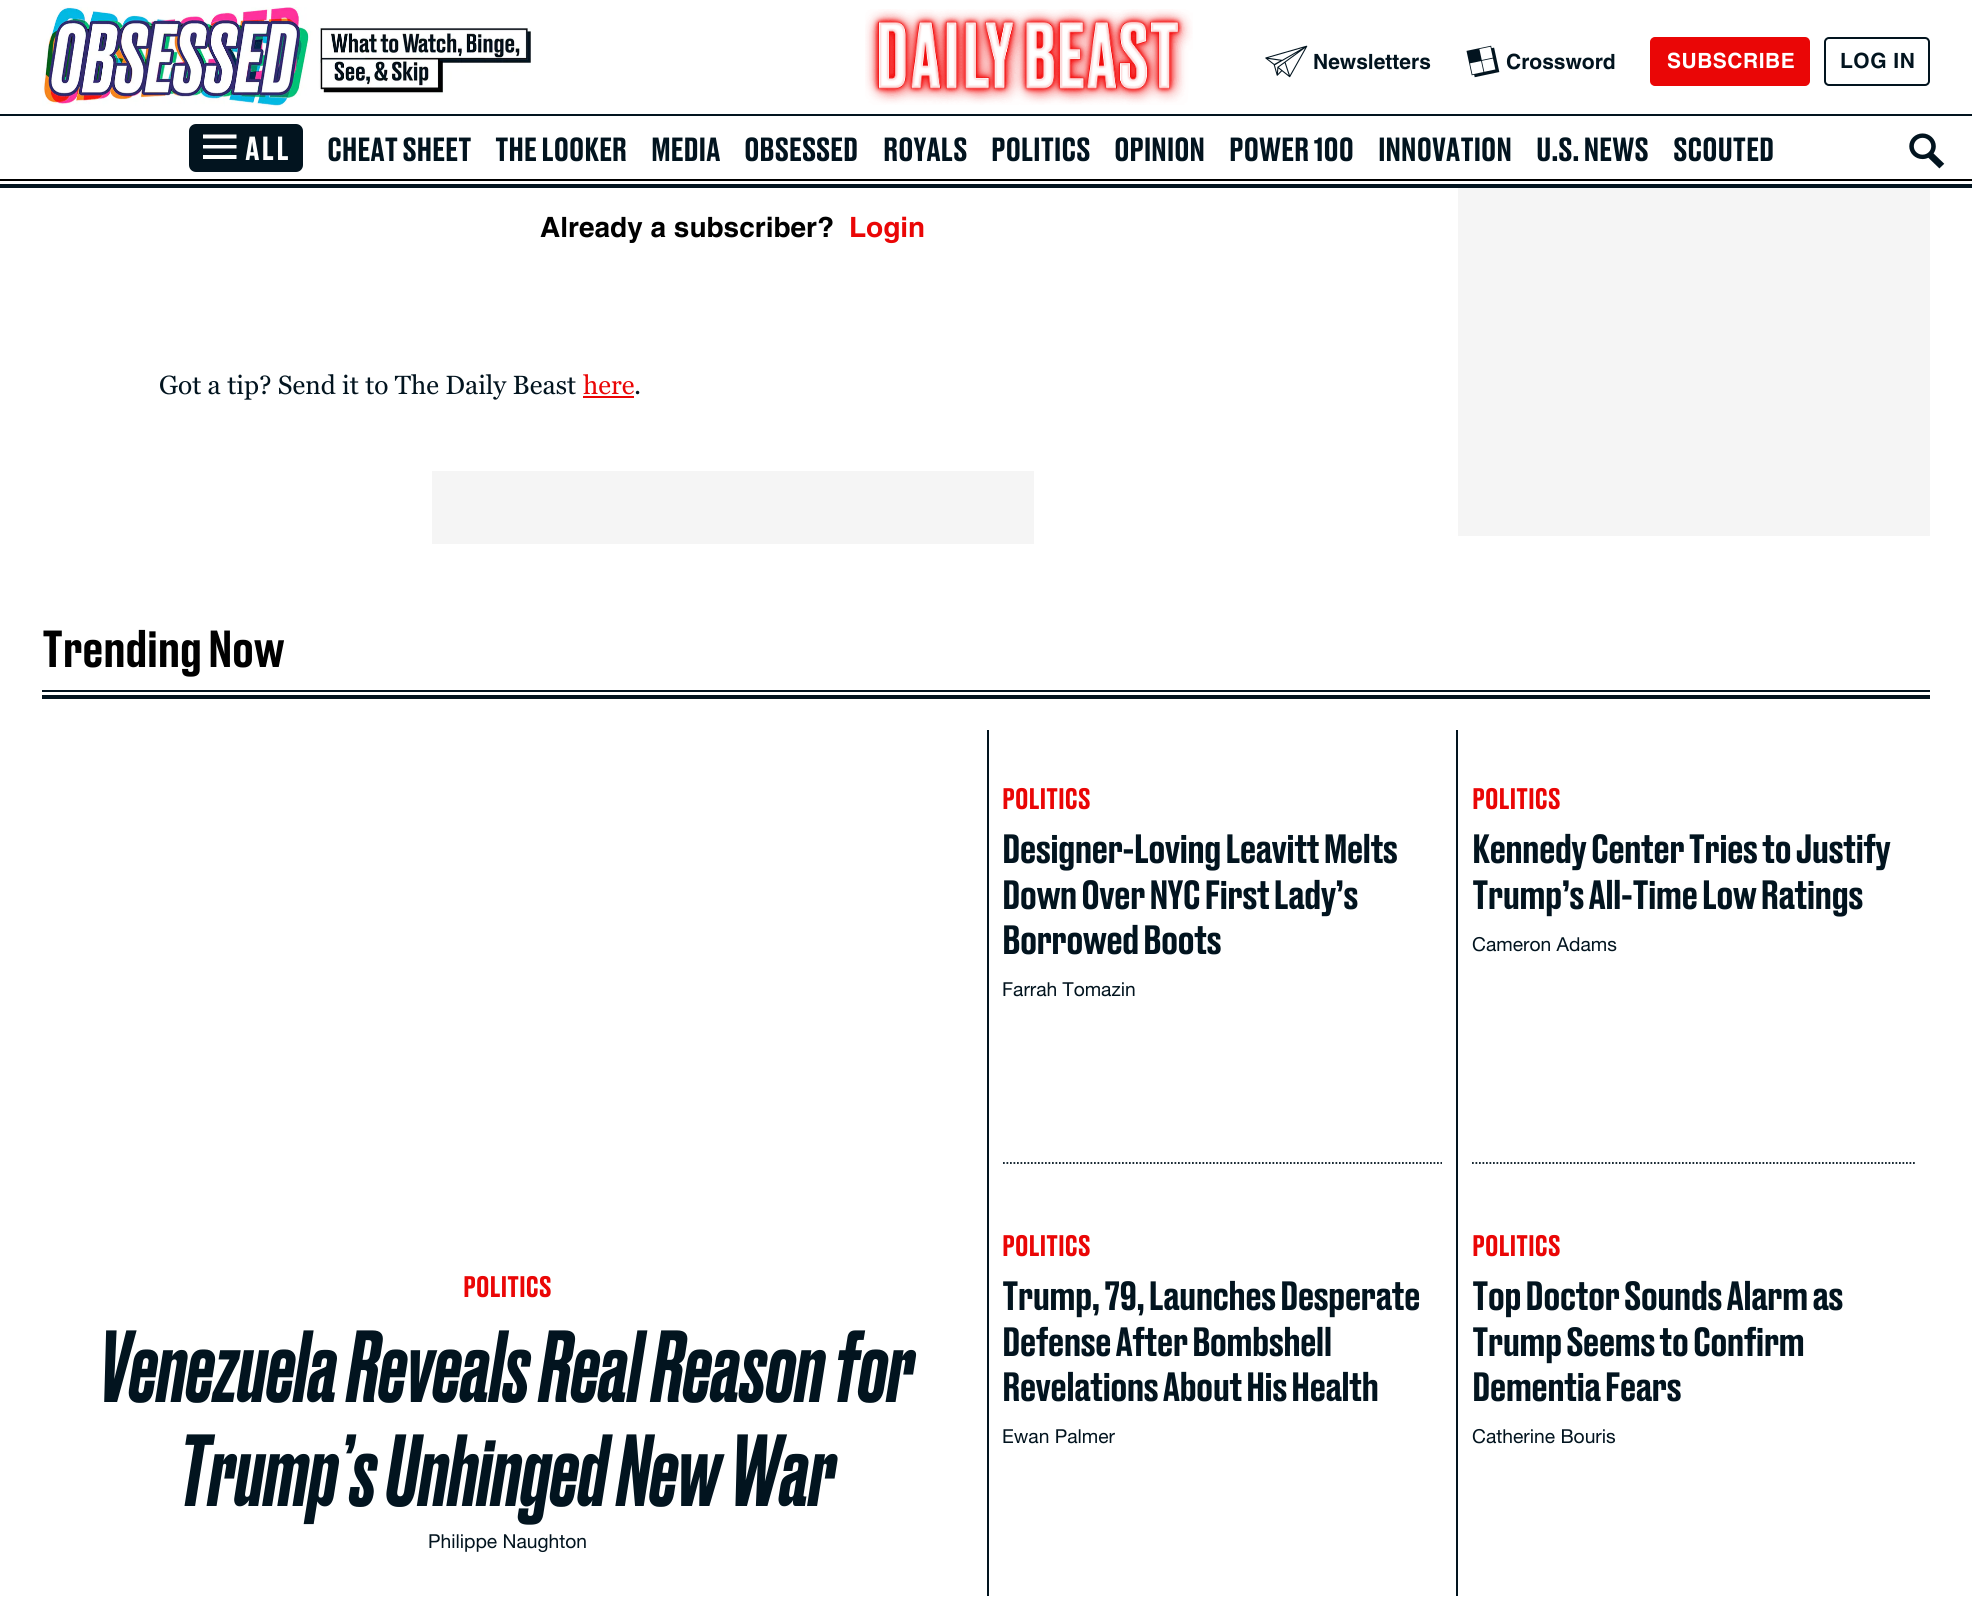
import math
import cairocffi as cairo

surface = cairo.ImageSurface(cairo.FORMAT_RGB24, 1972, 1611)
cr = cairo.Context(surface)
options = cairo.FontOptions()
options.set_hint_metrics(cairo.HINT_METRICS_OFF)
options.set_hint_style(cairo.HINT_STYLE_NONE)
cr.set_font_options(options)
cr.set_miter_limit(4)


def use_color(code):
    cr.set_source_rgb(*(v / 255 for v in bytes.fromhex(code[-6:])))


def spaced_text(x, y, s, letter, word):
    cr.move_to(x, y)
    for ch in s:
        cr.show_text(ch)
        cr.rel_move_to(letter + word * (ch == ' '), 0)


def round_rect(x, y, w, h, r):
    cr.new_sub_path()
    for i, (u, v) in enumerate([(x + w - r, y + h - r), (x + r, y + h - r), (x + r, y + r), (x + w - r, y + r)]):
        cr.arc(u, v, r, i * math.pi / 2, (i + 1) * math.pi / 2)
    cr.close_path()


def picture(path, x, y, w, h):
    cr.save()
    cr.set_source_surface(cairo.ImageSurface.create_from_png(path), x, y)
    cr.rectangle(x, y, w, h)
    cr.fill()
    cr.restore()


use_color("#ffffff")
cr.paint()
use_color("#02141f")
cr.rectangle(0, 184, 1972, 4)
cr.fill()
picture("img1.png", 42, 7, 489, 100)
picture("img2.png", 865, 9, 328, 96)
picture("img3.png", 1265, 45, 43, 33)
cr.select_font_face("Helvetica", cairo.FONT_SLANT_NORMAL, cairo.FONT_WEIGHT_BOLD)
cr.set_font_size(21)
cr.move_to(1313, 69)
cr.show_text("Newsletters")
picture("img4.png", 1466, 45, 34, 33)
cr.move_to(1506, 69)
cr.show_text("Crossword")
use_color("#ea0606")
round_rect(1651, 38, 158, 47, 4)
cr.fill_preserve()
cr.stroke()
use_color("#ffffff")
spaced_text(1667, 68, "SUBSCRIBE", 0.5, 0)
round_rect(1825, 38, 104, 47, 4)
use_color("#02141f")
cr.stroke()
spaced_text(1840, 68, "LOG IN", 0.5, 0)
cr.rectangle(0, 114, 1972, 2)
cr.fill()
round_rect(189, 124, 114, 48, 7)
cr.fill()
use_color("#ffffff")
cr.new_path()
cr.move_to(203, 134.5)
cr.line_to(236.5, 134.5)
cr.line_to(236.5, 138.5)
cr.line_to(203, 138.5)
cr.close_path()
cr.move_to(203, 145)
cr.line_to(236.5, 145)
cr.line_to(236.5, 148.5)
cr.line_to(203, 148.5)
cr.close_path()
cr.move_to(203, 155)
cr.line_to(236.5, 155)
cr.line_to(236.5, 159)
cr.line_to(203, 159)
cr.close_path()
cr.fill()
cr.select_font_face("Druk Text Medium")
cr.set_font_size(31.5)
spaced_text(245, 160, "ALL", 2, 0)
use_color("#02141f")
spaced_text(327, 161, "CHEAT SHEET", -0.3, 0)
spaced_text(495, 161, "THE LOOKER", -0.3, 0)
spaced_text(651, 161, "MEDIA", -0.3, 0)
spaced_text(744, 161, "OBSESSED", -0.3, 0)
spaced_text(883, 161, "ROYALS", -0.3, 0)
spaced_text(991, 161, "POLITICS", -0.3, 0)
spaced_text(1114, 161, "OPINION", -0.3, 0)
spaced_text(1229, 161, "POWER 100", -0.3, 0)
spaced_text(1378, 161, "INNOVATION", -0.3, 0)
spaced_text(1536, 161, "U.S. NEWS", -0.3, 0)
spaced_text(1673, 161, "SCOUTED", -0.3, 0)
picture("img5.png", 1909, 133, 36, 36)
use_color("#000000")
cr.rectangle(0, 179, 1972, 2)
cr.fill()
cr.select_font_face("Helvetica", cairo.FONT_SLANT_NORMAL, cairo.FONT_WEIGHT_BOLD)
cr.set_font_size(28)
cr.move_to(540, 237)
cr.show_text("Already a subscriber?")
use_color("#ea0606")
cr.move_to(849, 237)
cr.show_text("Login")
cr.select_font_face("Georgia")
cr.set_font_size(26.25)
use_color("#02141f")
cr.move_to(159, 394)
cr.show_text("Got a tip? Send it to The Daily Beast")
use_color("#ea0606")
cr.move_to(583, 394)
cr.show_text("here")
cr.rectangle(583, 396, 51, 2)
cr.fill()
use_color("#02141f")
cr.move_to(634, 394)
cr.show_text(".")
use_color("#f5f5f5")
cr.rectangle(432, 471, 602, 73)
cr.fill()
cr.rectangle(1458, 188, 472, 348)
cr.fill()
cr.select_font_face("Druk Text Medium")
cr.set_font_size(49)
use_color("#000000")
spaced_text(42, 667, "Trending Now", -0.8, 0)
use_color("#02141f")
cr.rectangle(42, 690, 1888, 2)
cr.fill()
cr.rectangle(42, 695, 1888, 4)
cr.fill()
cr.set_font_size(28)
use_color("#ea0606")
spaced_text(1002, 809, "POLITICS", -0.25, 0)
cr.set_font_size(38.5)
use_color("#02141f")
spaced_text(1002, 863, "Designer-Loving Leavitt Melts", -1.15, 0)
spaced_text(1002, 909, "Down Over NYC First Lady’s", -1.15, 0)
spaced_text(1002, 954, "Borrowed Boots", -1.15, 0)
cr.select_font_face("Helvetica Neue")
cr.set_font_size(19.25)
cr.move_to(1002, 996)
cr.show_text("Farrah Tomazin")
cr.new_path()
cr.move_to(1003, 1163)
cr.line_to(1442, 1163)
cr.set_line_width(1.8)
cr.set_dash([1.75, 1.75])
cr.stroke()
cr.select_font_face("Druk Text Medium")
cr.set_font_size(28)
use_color("#ea0606")
spaced_text(1472, 809, "POLITICS", -0.25, 0)
cr.set_font_size(38.5)
use_color("#02141f")
spaced_text(1472, 863, "Kennedy Center Tries to Justify", -1.15, 0)
spaced_text(1472, 909, "Trump’s All-Time Low Ratings", -1.15, 0)
cr.select_font_face("Helvetica Neue")
cr.set_font_size(19.25)
cr.move_to(1472, 951)
cr.show_text("Cameron Adams")
cr.new_path()
cr.move_to(1472, 1163)
cr.line_to(1916, 1163)
cr.stroke()
cr.select_font_face("Druk Text Medium")
cr.set_font_size(28)
use_color("#ea0606")
spaced_text(463, 1297, "POLITICS", -0.25, 0)
cr.select_font_face("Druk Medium", cairo.FONT_SLANT_ITALIC)
cr.set_font_size(96.25)
use_color("#02141f")
cr.move_to(99, 1402)
cr.show_text("Venezuela Reveals Real Reason for")
cr.move_to(179, 1506)
cr.show_text("Trump’s Unhinged New War")
cr.select_font_face("Helvetica Neue")
cr.set_font_size(19.25)
cr.move_to(428, 1548)
cr.show_text("Philippe Naughton")
cr.rectangle(1456, 730, 2, 866)
cr.fill()
cr.rectangle(987, 730, 2, 866)
cr.fill()
cr.select_font_face("Druk Text Medium")
cr.set_font_size(28)
use_color("#ea0606")
spaced_text(1002, 1256, "POLITICS", -0.25, 0)
cr.set_font_size(38.5)
use_color("#02141f")
spaced_text(1002, 1310, "Trump, 79, Launches Desperate", -1.15, 0)
spaced_text(1002, 1356, "Defense After Bombshell", -1.15, 0)
spaced_text(1002, 1401, "Revelations About His Health", -1.15, 0)
cr.select_font_face("Helvetica Neue")
cr.set_font_size(19.25)
cr.move_to(1002, 1443)
cr.show_text("Ewan Palmer")
cr.select_font_face("Druk Text Medium")
cr.set_font_size(28)
use_color("#ea0606")
spaced_text(1472, 1256, "POLITICS", -0.25, 0)
cr.set_font_size(38.5)
use_color("#02141f")
spaced_text(1472, 1310, "Top Doctor Sounds Alarm as", -1.15, 0)
spaced_text(1472, 1356, "Trump Seems to Confirm", -1.15, 0)
spaced_text(1472, 1401, "Dementia Fears", -1.15, 0)
cr.select_font_face("Helvetica Neue")
cr.set_font_size(19.25)
cr.move_to(1472, 1443)
cr.show_text("Catherine Bouris")
surface.write_to_png("result.png")
